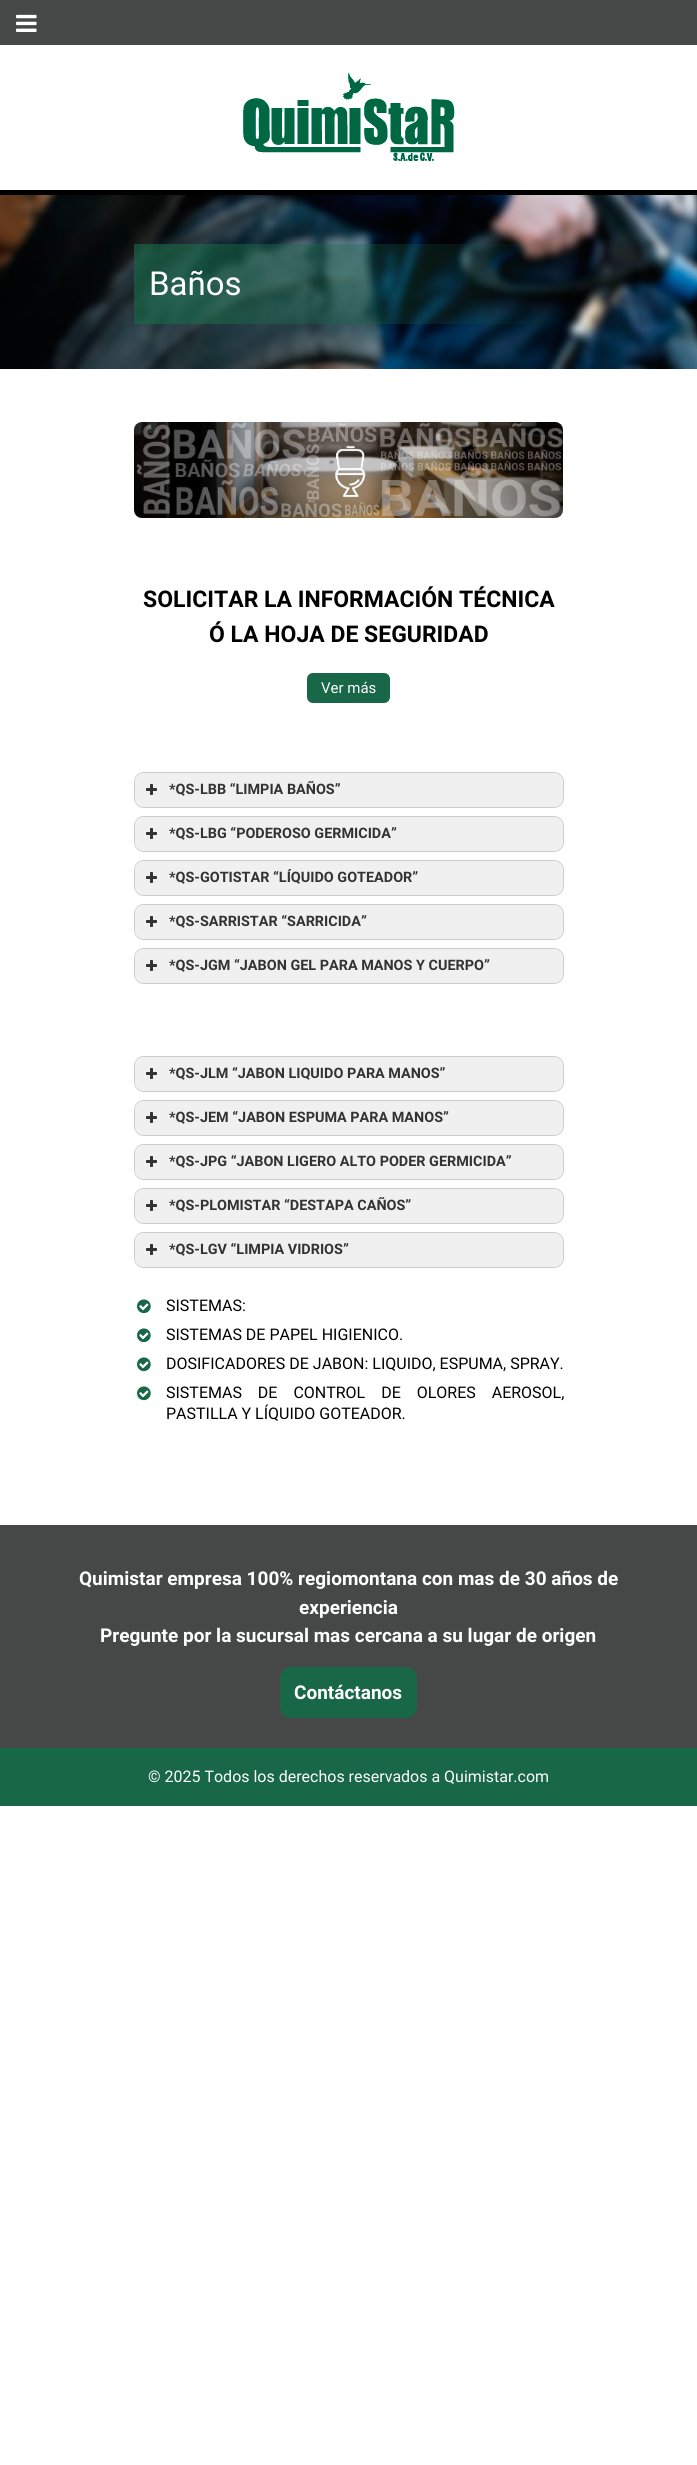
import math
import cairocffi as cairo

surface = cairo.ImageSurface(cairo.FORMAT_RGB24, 697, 2465)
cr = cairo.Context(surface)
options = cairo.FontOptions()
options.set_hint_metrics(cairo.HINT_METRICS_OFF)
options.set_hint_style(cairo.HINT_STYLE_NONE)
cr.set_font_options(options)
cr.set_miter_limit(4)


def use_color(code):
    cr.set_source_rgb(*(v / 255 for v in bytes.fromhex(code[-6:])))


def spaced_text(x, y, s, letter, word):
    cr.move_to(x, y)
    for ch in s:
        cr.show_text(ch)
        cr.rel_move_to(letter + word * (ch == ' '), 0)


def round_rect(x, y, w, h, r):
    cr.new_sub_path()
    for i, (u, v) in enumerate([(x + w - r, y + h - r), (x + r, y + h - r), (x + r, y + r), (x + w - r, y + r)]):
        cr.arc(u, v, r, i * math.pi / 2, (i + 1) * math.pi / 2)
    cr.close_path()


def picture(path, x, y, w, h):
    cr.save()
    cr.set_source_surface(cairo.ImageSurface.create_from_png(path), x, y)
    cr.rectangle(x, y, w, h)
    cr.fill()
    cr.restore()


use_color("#ffffff")
cr.paint()
use_color("#464747")
cr.rectangle(0, 0, 697, 45)
cr.fill()
use_color("#000000")
cr.rectangle(0, 190, 697, 5)
cr.fill()
picture("img1.png", 243, 72, 212, 89)
picture("img2.png", 16, 14, 21, 18)
picture("img3.png", 0, 195, 697, 174)
cr.select_font_face("Roboto")
cr.set_font_size(33)
use_color("#ffffff")
cr.move_to(149, 295)
cr.show_text("Baños")
picture("img4.png", 134, 422, 429, 96)
cr.select_font_face("Roboto", cairo.FONT_SLANT_NORMAL, cairo.FONT_WEIGHT_BOLD)
cr.set_font_size(23)
use_color("#000000")
cr.move_to(143, 607)
cr.show_text("SOLICITAR LA INFORMACIÓN TÉCNICA")
cr.move_to(209, 642)
cr.show_text("Ó LA HOJA DE SEGURIDAD")
use_color("#186747")
round_rect(307, 673, 83, 30, 6)
cr.fill()
cr.select_font_face("Roboto")
cr.set_font_size(15)
use_color("#ffffff")
cr.move_to(321, 693)
cr.show_text("Ver más")
round_rect(134.5, 772.5, 429, 35, 9.5)
use_color("#cccccc")
cr.set_line_width(1)
cr.stroke()
use_color("#f0f0f0")
round_rect(135, 773, 428, 34, 10)
cr.fill()
picture("img5.png", 146, 784, 11, 11)
cr.select_font_face("Roboto", cairo.FONT_SLANT_NORMAL, cairo.FONT_WEIGHT_BOLD)
cr.set_font_size(14.4)
use_color("#333333")
cr.move_to(169, 794)
cr.show_text("*QS-LBB “LIMPIA BAÑOS”")
round_rect(134.5, 816.5, 429, 35, 9.5)
use_color("#cccccc")
cr.stroke()
use_color("#f0f0f0")
round_rect(135, 817, 428, 34, 10)
cr.fill()
picture("img5.png", 146, 828, 11, 11)
use_color("#333333")
cr.move_to(169, 838)
cr.show_text("*QS-LBG “PODEROSO GERMICIDA”")
round_rect(134.5, 860.5, 429, 35, 9.5)
use_color("#cccccc")
cr.stroke()
use_color("#f0f0f0")
round_rect(135, 861, 428, 34, 10)
cr.fill()
picture("img5.png", 146, 872, 11, 11)
use_color("#333333")
cr.move_to(169, 882)
cr.show_text("*QS-GOTISTAR “LÍQUIDO GOTEADOR”")
round_rect(134.5, 904.5, 429, 35, 9.5)
use_color("#cccccc")
cr.stroke()
use_color("#f0f0f0")
round_rect(135, 905, 428, 34, 10)
cr.fill()
picture("img5.png", 146, 916, 11, 11)
use_color("#333333")
cr.move_to(169, 926)
cr.show_text("*QS-SARRISTAR “SARRICIDA”")
round_rect(134.5, 948.5, 429, 35, 9.5)
use_color("#cccccc")
cr.stroke()
use_color("#f0f0f0")
round_rect(135, 949, 428, 34, 10)
cr.fill()
picture("img5.png", 146, 960, 11, 11)
use_color("#333333")
cr.move_to(169, 970)
cr.show_text("*QS-JGM “JABON GEL PARA MANOS Y CUERPO”")
round_rect(134.5, 1056.5, 429, 35, 9.5)
use_color("#cccccc")
cr.stroke()
use_color("#f0f0f0")
round_rect(135, 1057, 428, 34, 10)
cr.fill()
picture("img5.png", 146, 1068, 11, 11)
use_color("#333333")
cr.move_to(169, 1078)
cr.show_text("*QS-JLM “JABON LIQUIDO PARA MANOS”")
round_rect(134.5, 1100.5, 429, 35, 9.5)
use_color("#cccccc")
cr.stroke()
use_color("#f0f0f0")
round_rect(135, 1101, 428, 34, 10)
cr.fill()
picture("img5.png", 146, 1112, 11, 11)
use_color("#333333")
cr.move_to(169, 1122)
cr.show_text("*QS-JEM “JABON ESPUMA PARA MANOS”")
round_rect(134.5, 1144.5, 429, 35, 9.5)
use_color("#cccccc")
cr.stroke()
use_color("#f0f0f0")
round_rect(135, 1145, 428, 34, 10)
cr.fill()
picture("img5.png", 146, 1156, 11, 11)
use_color("#333333")
cr.move_to(169, 1166)
cr.show_text("*QS-JPG “JABON LIGERO ALTO PODER GERMICIDA”")
round_rect(134.5, 1188.5, 429, 35, 9.5)
use_color("#cccccc")
cr.stroke()
use_color("#f0f0f0")
round_rect(135, 1189, 428, 34, 10)
cr.fill()
picture("img5.png", 146, 1200, 11, 11)
use_color("#333333")
cr.move_to(169, 1210)
cr.show_text("*QS-PLOMISTAR “DESTAPA CAÑOS”")
round_rect(134.5, 1232.5, 429, 35, 9.5)
use_color("#cccccc")
cr.stroke()
use_color("#f0f0f0")
round_rect(135, 1233, 428, 34, 10)
cr.fill()
picture("img5.png", 146, 1244, 11, 11)
use_color("#333333")
cr.move_to(169, 1254)
cr.show_text("*QS-LGV “LIMPIA VIDRIOS”")
picture("img6.png", 137, 1299, 14, 15)
cr.select_font_face("Roboto")
cr.set_font_size(16)
use_color("#000000")
cr.move_to(166, 1311)
cr.show_text("SISTEMAS:")
picture("img6.png", 137, 1328, 14, 15)
cr.move_to(166, 1340)
cr.show_text("SISTEMAS DE PAPEL HIGIENICO.")
picture("img6.png", 137, 1357, 14, 15)
cr.move_to(166, 1369)
cr.show_text("DOSIFICADORES DE JABON: LIQUIDO, ESPUMA, SPRAY.")
picture("img6.png", 137, 1386, 14, 15)
spaced_text(166, 1398, "SISTEMAS DE CONTROL DE OLORES AEROSOL,", 0, 12)
cr.move_to(166, 1419)
cr.show_text("PASTILLA Y LÍQUIDO GOTEADOR.")
use_color("#464747")
cr.rectangle(0, 1525, 697, 223)
cr.fill()
cr.select_font_face("Roboto", cairo.FONT_SLANT_NORMAL, cairo.FONT_WEIGHT_BOLD)
cr.set_font_size(19)
use_color("#ffffff")
cr.move_to(79, 1585)
cr.show_text("Quimistar empresa 100% regiomontana con mas de 30 años de")
cr.move_to(299, 1614)
cr.show_text("experiencia")
cr.move_to(100, 1642)
cr.show_text("Pregunte por la sucursal mas cercana a su lugar de origen")
use_color("#186747")
round_rect(280, 1667, 137, 51, 11)
cr.fill()
use_color("#ffffff")
cr.move_to(294, 1699)
cr.show_text("Contáctanos")
use_color("#186747")
cr.rectangle(0, 1748, 697, 58)
cr.fill()
cr.select_font_face("Roboto")
cr.set_font_size(16)
use_color("#ffffff")
cr.move_to(148, 1782)
cr.show_text("© 2025 Todos los derechos reservados a Quimistar.com")
surface.write_to_png("result.png")
